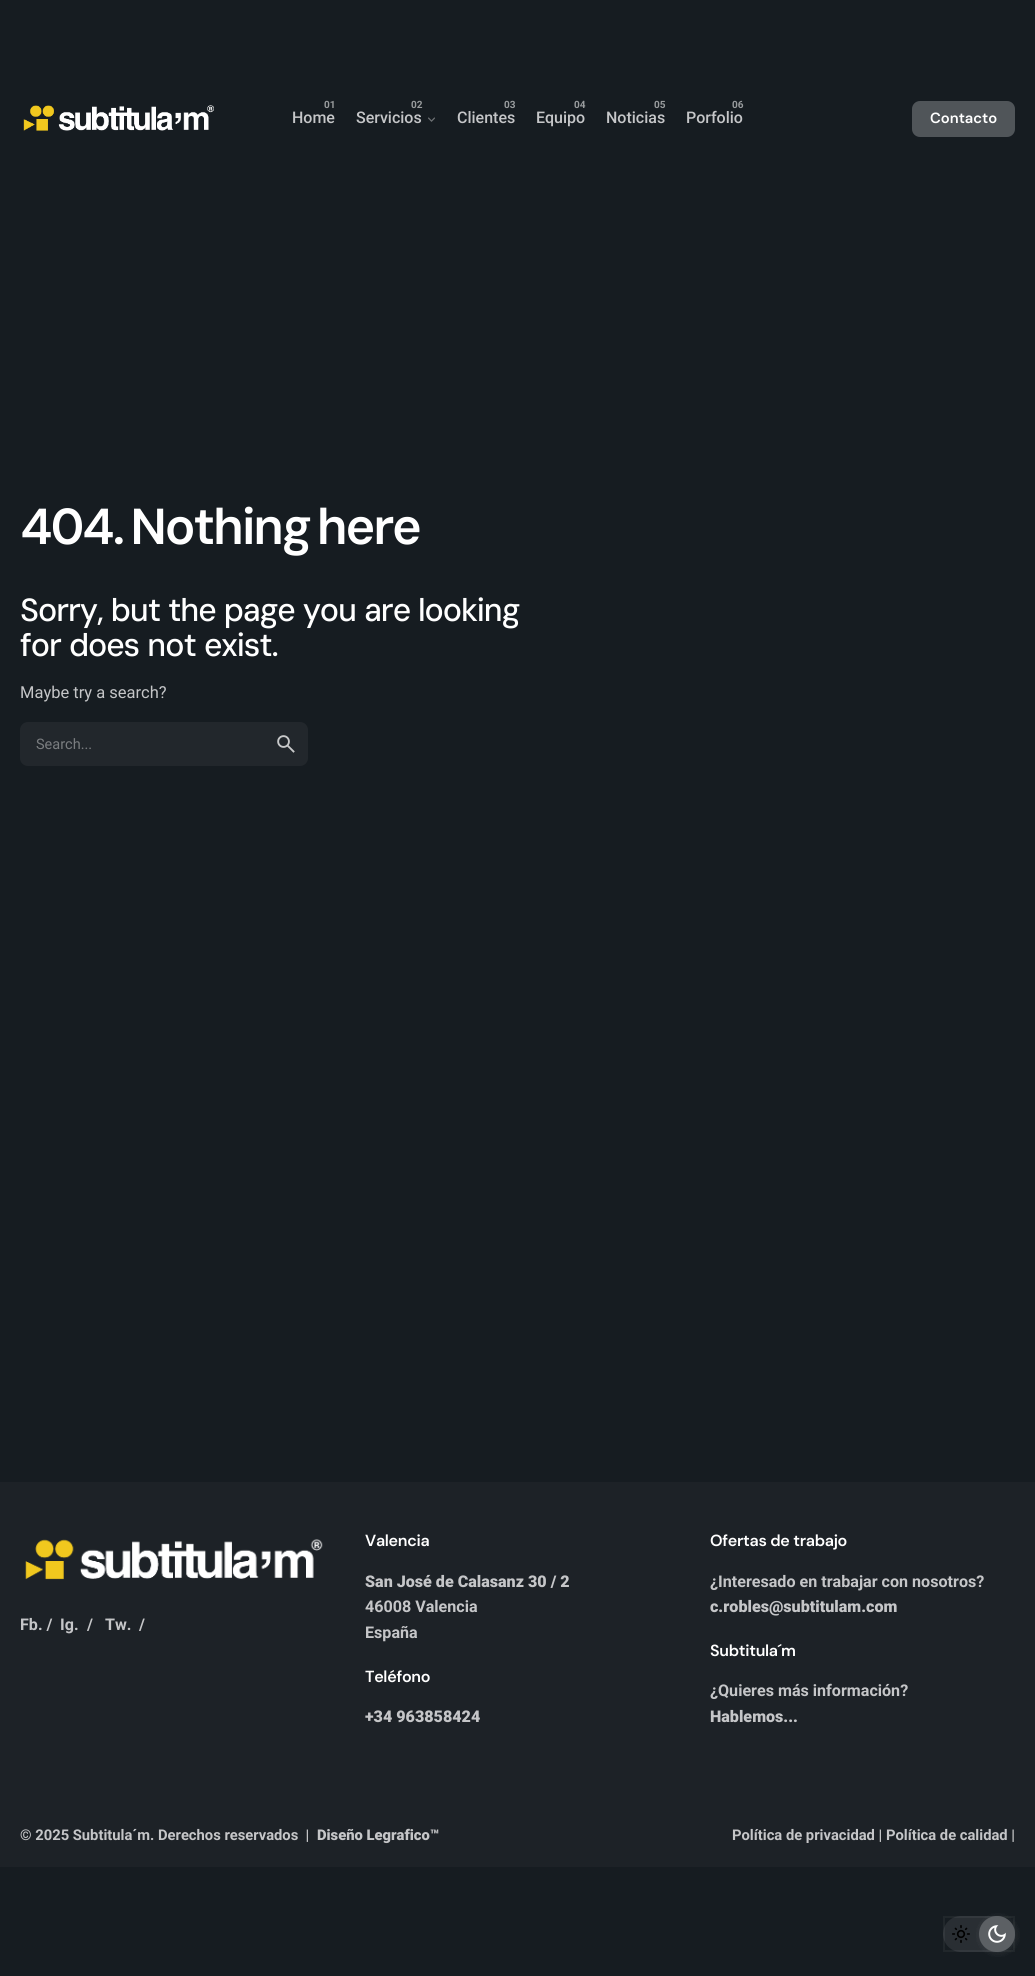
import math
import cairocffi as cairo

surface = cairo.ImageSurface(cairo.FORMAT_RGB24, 1035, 1976)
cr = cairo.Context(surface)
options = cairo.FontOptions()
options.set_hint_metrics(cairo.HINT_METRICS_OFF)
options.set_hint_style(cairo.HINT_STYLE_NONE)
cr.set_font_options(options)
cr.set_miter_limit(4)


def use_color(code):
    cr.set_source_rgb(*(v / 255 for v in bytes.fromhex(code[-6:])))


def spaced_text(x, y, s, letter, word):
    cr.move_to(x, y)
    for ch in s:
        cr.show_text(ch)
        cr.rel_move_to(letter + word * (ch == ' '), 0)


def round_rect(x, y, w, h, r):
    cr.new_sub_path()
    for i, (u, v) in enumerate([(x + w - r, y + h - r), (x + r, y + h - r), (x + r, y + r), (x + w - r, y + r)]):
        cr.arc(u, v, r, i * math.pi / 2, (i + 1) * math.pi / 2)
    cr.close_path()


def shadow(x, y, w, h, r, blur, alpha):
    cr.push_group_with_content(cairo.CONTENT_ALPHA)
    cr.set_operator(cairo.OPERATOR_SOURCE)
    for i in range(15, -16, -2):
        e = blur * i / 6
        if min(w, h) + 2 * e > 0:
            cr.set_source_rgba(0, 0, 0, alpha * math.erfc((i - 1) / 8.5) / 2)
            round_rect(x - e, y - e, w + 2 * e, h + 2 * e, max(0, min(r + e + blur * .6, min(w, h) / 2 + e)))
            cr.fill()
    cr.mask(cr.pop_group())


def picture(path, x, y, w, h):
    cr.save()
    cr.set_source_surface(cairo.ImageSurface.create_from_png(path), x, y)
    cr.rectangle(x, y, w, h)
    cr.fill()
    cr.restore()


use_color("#161c21")
cr.paint()
picture("img1.png", 23, 105, 191, 26)
cr.select_font_face("Roboto", cairo.FONT_SLANT_NORMAL, cairo.FONT_WEIGHT_BOLD)
cr.set_font_size(10)
use_color("#999c9e")
cr.move_to(324, 108)
cr.show_text("01")
cr.select_font_face("Roboto Medium")
cr.set_font_size(16)
use_color("#c5c6c8")
cr.move_to(292, 123)
cr.show_text("Home")
cr.select_font_face("Roboto", cairo.FONT_SLANT_NORMAL, cairo.FONT_WEIGHT_BOLD)
cr.set_font_size(10)
use_color("#999c9e")
cr.move_to(411, 108)
cr.show_text("02")
cr.select_font_face("Roboto Medium")
cr.set_font_size(16)
use_color("#c5c6c8")
cr.move_to(356, 123)
cr.show_text("Servicios")
picture("img2.png", 428, 117, 7, 5)
cr.select_font_face("Roboto", cairo.FONT_SLANT_NORMAL, cairo.FONT_WEIGHT_BOLD)
cr.set_font_size(10)
use_color("#999c9e")
cr.move_to(504, 108)
cr.show_text("03")
cr.select_font_face("Roboto Medium")
cr.set_font_size(16)
use_color("#c5c6c8")
cr.move_to(457, 123)
cr.show_text("Clientes")
cr.select_font_face("Roboto", cairo.FONT_SLANT_NORMAL, cairo.FONT_WEIGHT_BOLD)
cr.set_font_size(10)
use_color("#999c9e")
cr.move_to(574, 108)
cr.show_text("04")
cr.select_font_face("Roboto Medium")
cr.set_font_size(16)
use_color("#c5c6c8")
cr.move_to(536, 123)
cr.show_text("Equipo")
cr.select_font_face("Roboto", cairo.FONT_SLANT_NORMAL, cairo.FONT_WEIGHT_BOLD)
cr.set_font_size(10)
use_color("#999c9e")
cr.move_to(654, 108)
cr.show_text("05")
cr.select_font_face("Roboto Medium")
cr.set_font_size(16)
use_color("#c5c6c8")
cr.move_to(606, 123)
cr.show_text("Noticias")
cr.select_font_face("Roboto", cairo.FONT_SLANT_NORMAL, cairo.FONT_WEIGHT_BOLD)
cr.set_font_size(10)
use_color("#999c9e")
cr.move_to(732, 108)
cr.show_text("06")
cr.select_font_face("Roboto Medium")
cr.set_font_size(16)
use_color("#c5c6c8")
cr.move_to(686, 123)
cr.show_text("Porfolio")
use_color("#505559")
round_rect(912, 101, 103, 36, 8)
cr.fill()
cr.select_font_face("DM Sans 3 SemiBold")
cr.set_font_size(14.75)
use_color("#ffffff")
cr.move_to(930, 123)
cr.show_text("Contacto")
cr.select_font_face("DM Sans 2 SemiBold")
cr.set_font_size(50.5)
spaced_text(20, 544, "404. Nothing here", -2.25, -3)
cr.select_font_face("DM Sans Medium")
cr.set_font_size(32)
spaced_text(20, 621, "Sorry, but the page you are looking", -1.1, 0.75)
spaced_text(20, 656, "for does not exist.", -1.1, 1)
cr.select_font_face("Roboto")
cr.set_font_size(16.5)
use_color("#c5c6c8")
cr.move_to(20, 698)
cr.show_text("Maybe try a search?")
use_color("#22272c")
round_rect(20, 722, 288, 44, 8)
cr.fill()
cr.set_font_size(14.5)
use_color("#7a7d80")
cr.move_to(36, 749)
cr.show_text("Search...")
picture("img3.png", 277, 735, 18, 18)
use_color("#1d2227")
cr.rectangle(0, 1482, 1035, 385)
cr.fill()
picture("img4.png", 25, 1539, 298, 41)
cr.select_font_face("Roboto", cairo.FONT_SLANT_NORMAL, cairo.FONT_WEIGHT_BOLD)
cr.set_font_size(16.1)
use_color("#c5c6c8")
cr.move_to(20, 1630)
cr.show_text("Fb. /")
cr.move_to(60, 1630)
cr.show_text("Ig.")
cr.move_to(87, 1630)
cr.show_text("/")
cr.move_to(105, 1630)
cr.show_text("Tw.")
cr.move_to(139, 1630)
cr.show_text("/")
cr.select_font_face("DM Sans SemiBold")
use_color("#ffffff")
spaced_text(365, 1546, "Valencia", -0.3, 0)
cr.select_font_face("Roboto Black")
use_color("#c5c6c8")
cr.move_to(365, 1587)
cr.show_text("San José de Calasanz 30 / 2")
cr.select_font_face("Roboto", cairo.FONT_SLANT_NORMAL, cairo.FONT_WEIGHT_BOLD)
cr.move_to(365, 1612)
cr.show_text("46008 Valencia")
cr.move_to(365, 1638)
cr.show_text("España")
cr.select_font_face("DM Sans SemiBold")
use_color("#ffffff")
spaced_text(365, 1682, "Teléfono", -0.3, 0)
cr.select_font_face("Roboto Black")
use_color("#c5c6c8")
cr.move_to(365, 1722)
cr.show_text("+34 963858424")
cr.select_font_face("DM Sans SemiBold")
use_color("#ffffff")
spaced_text(710, 1546, "Ofertas de trabajo", -0.3, 0)
cr.select_font_face("Roboto", cairo.FONT_SLANT_NORMAL, cairo.FONT_WEIGHT_BOLD)
use_color("#c5c6c8")
cr.move_to(710, 1587)
cr.show_text("¿Interesado en trabajar con nosotros?")
cr.select_font_face("Roboto Black")
cr.move_to(710, 1612)
cr.show_text("c.robles@subtitulam.com")
cr.select_font_face("DM Sans SemiBold")
use_color("#ffffff")
spaced_text(710, 1656, "Subtitula´m", -0.3, 0)
cr.select_font_face("Roboto", cairo.FONT_SLANT_NORMAL, cairo.FONT_WEIGHT_BOLD)
use_color("#c5c6c8")
cr.move_to(710, 1696)
cr.show_text("¿Quieres más información?")
cr.select_font_face("Roboto Black")
cr.move_to(710, 1722)
cr.show_text("Hablemos...")
cr.select_font_face("Roboto", cairo.FONT_SLANT_NORMAL, cairo.FONT_WEIGHT_BOLD)
cr.set_font_size(14.75)
cr.move_to(20, 1840)
cr.show_text("© 2025 Subtitula´m. Derechos reservados  |")
cr.select_font_face("Roboto Black")
cr.move_to(317, 1840)
cr.show_text("Diseño Legrafico™")
cr.select_font_face("Roboto", cairo.FONT_SLANT_NORMAL, cairo.FONT_WEIGHT_BOLD)
cr.move_to(732, 1840)
cr.show_text("Política de privacidad | Política de calidad |")
use_color("#292e33")
round_rect(943, 1916, 72, 36, 18)
cr.fill()
cr.rectangle(944, 1917, 70, 34)
cr.set_source_rgba(1, 1, 1, 0.05)
cr.stroke()
picture("img5.png", 952, 1925, 18, 18)
use_color("#ffffff")
shadow(980, 1917, 36, 36, 18, 3, 0.05)
shadow(980, 1917, 36, 36, 18, 3, 0.05)
use_color("#5c6064")
cr.arc(997, 1934, 18, 0, 2 * math.pi)
cr.fill()
picture("img6.png", 988, 1925, 18, 18)
surface.write_to_png("result.png")
